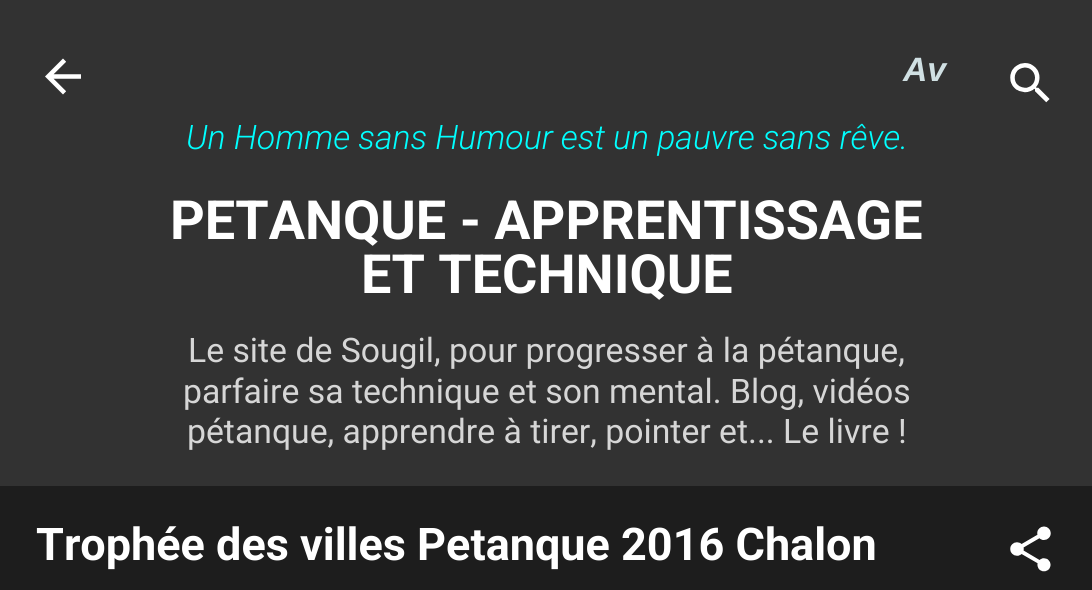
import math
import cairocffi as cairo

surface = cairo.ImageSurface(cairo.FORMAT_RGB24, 1092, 590)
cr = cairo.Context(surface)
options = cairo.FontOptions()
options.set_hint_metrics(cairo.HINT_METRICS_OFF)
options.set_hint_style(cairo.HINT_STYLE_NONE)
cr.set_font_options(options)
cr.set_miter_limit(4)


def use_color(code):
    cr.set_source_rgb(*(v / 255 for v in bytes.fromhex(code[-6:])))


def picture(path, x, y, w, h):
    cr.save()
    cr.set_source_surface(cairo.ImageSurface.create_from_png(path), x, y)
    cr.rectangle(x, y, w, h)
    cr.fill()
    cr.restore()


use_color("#323232")
cr.paint()
picture("img1.png", 45, 58, 36, 37)
cr.select_font_face("Liberation Sans", cairo.FONT_SLANT_ITALIC, cairo.FONT_WEIGHT_BOLD)
cr.set_font_size(33.75)
use_color("#d0e0e3")
cr.move_to(903, 81)
cr.show_text("Av")
cr.select_font_face("Roboto Light", cairo.FONT_SLANT_ITALIC)
use_color("#00ffff")
cr.move_to(186, 149)
cr.show_text("Un Homme sans Humour est un pauvre sans rêve.")
cr.select_font_face("Roboto", cairo.FONT_SLANT_NORMAL, cairo.FONT_WEIGHT_BOLD)
cr.set_font_size(54)
use_color("#ffffff")
cr.move_to(170, 239)
cr.show_text("PETANQUE - APPRENTISSAGE")
cr.move_to(361, 293)
cr.show_text("ET TECHNIQUE")
cr.select_font_face("Roboto")
cr.set_font_size(33.75)
use_color("#d6d6d6")
cr.move_to(188, 362)
cr.show_text("Le site de Sougil, pour progresser à la pétanque,")
cr.move_to(183, 403)
cr.show_text("parfaire sa technique et son mental. Blog, vidéos")
cr.move_to(187, 443)
cr.show_text("pétanque, apprendre à tirer, pointer et... Le livre !")
picture("img2.png", 1010, 63, 40, 40)
use_color("#1d1d1d")
cr.rectangle(0, 486, 1092, 104)
cr.fill()
cr.select_font_face("Roboto", cairo.FONT_SLANT_NORMAL, cairo.FONT_WEIGHT_BOLD)
cr.set_font_size(45)
use_color("#ffffff")
cr.move_to(36, 560)
cr.show_text("Trophée des villes Petanque 2016 Chalon")
picture("img3.png", 1010, 526, 41, 46)
surface.write_to_png("result.png")
